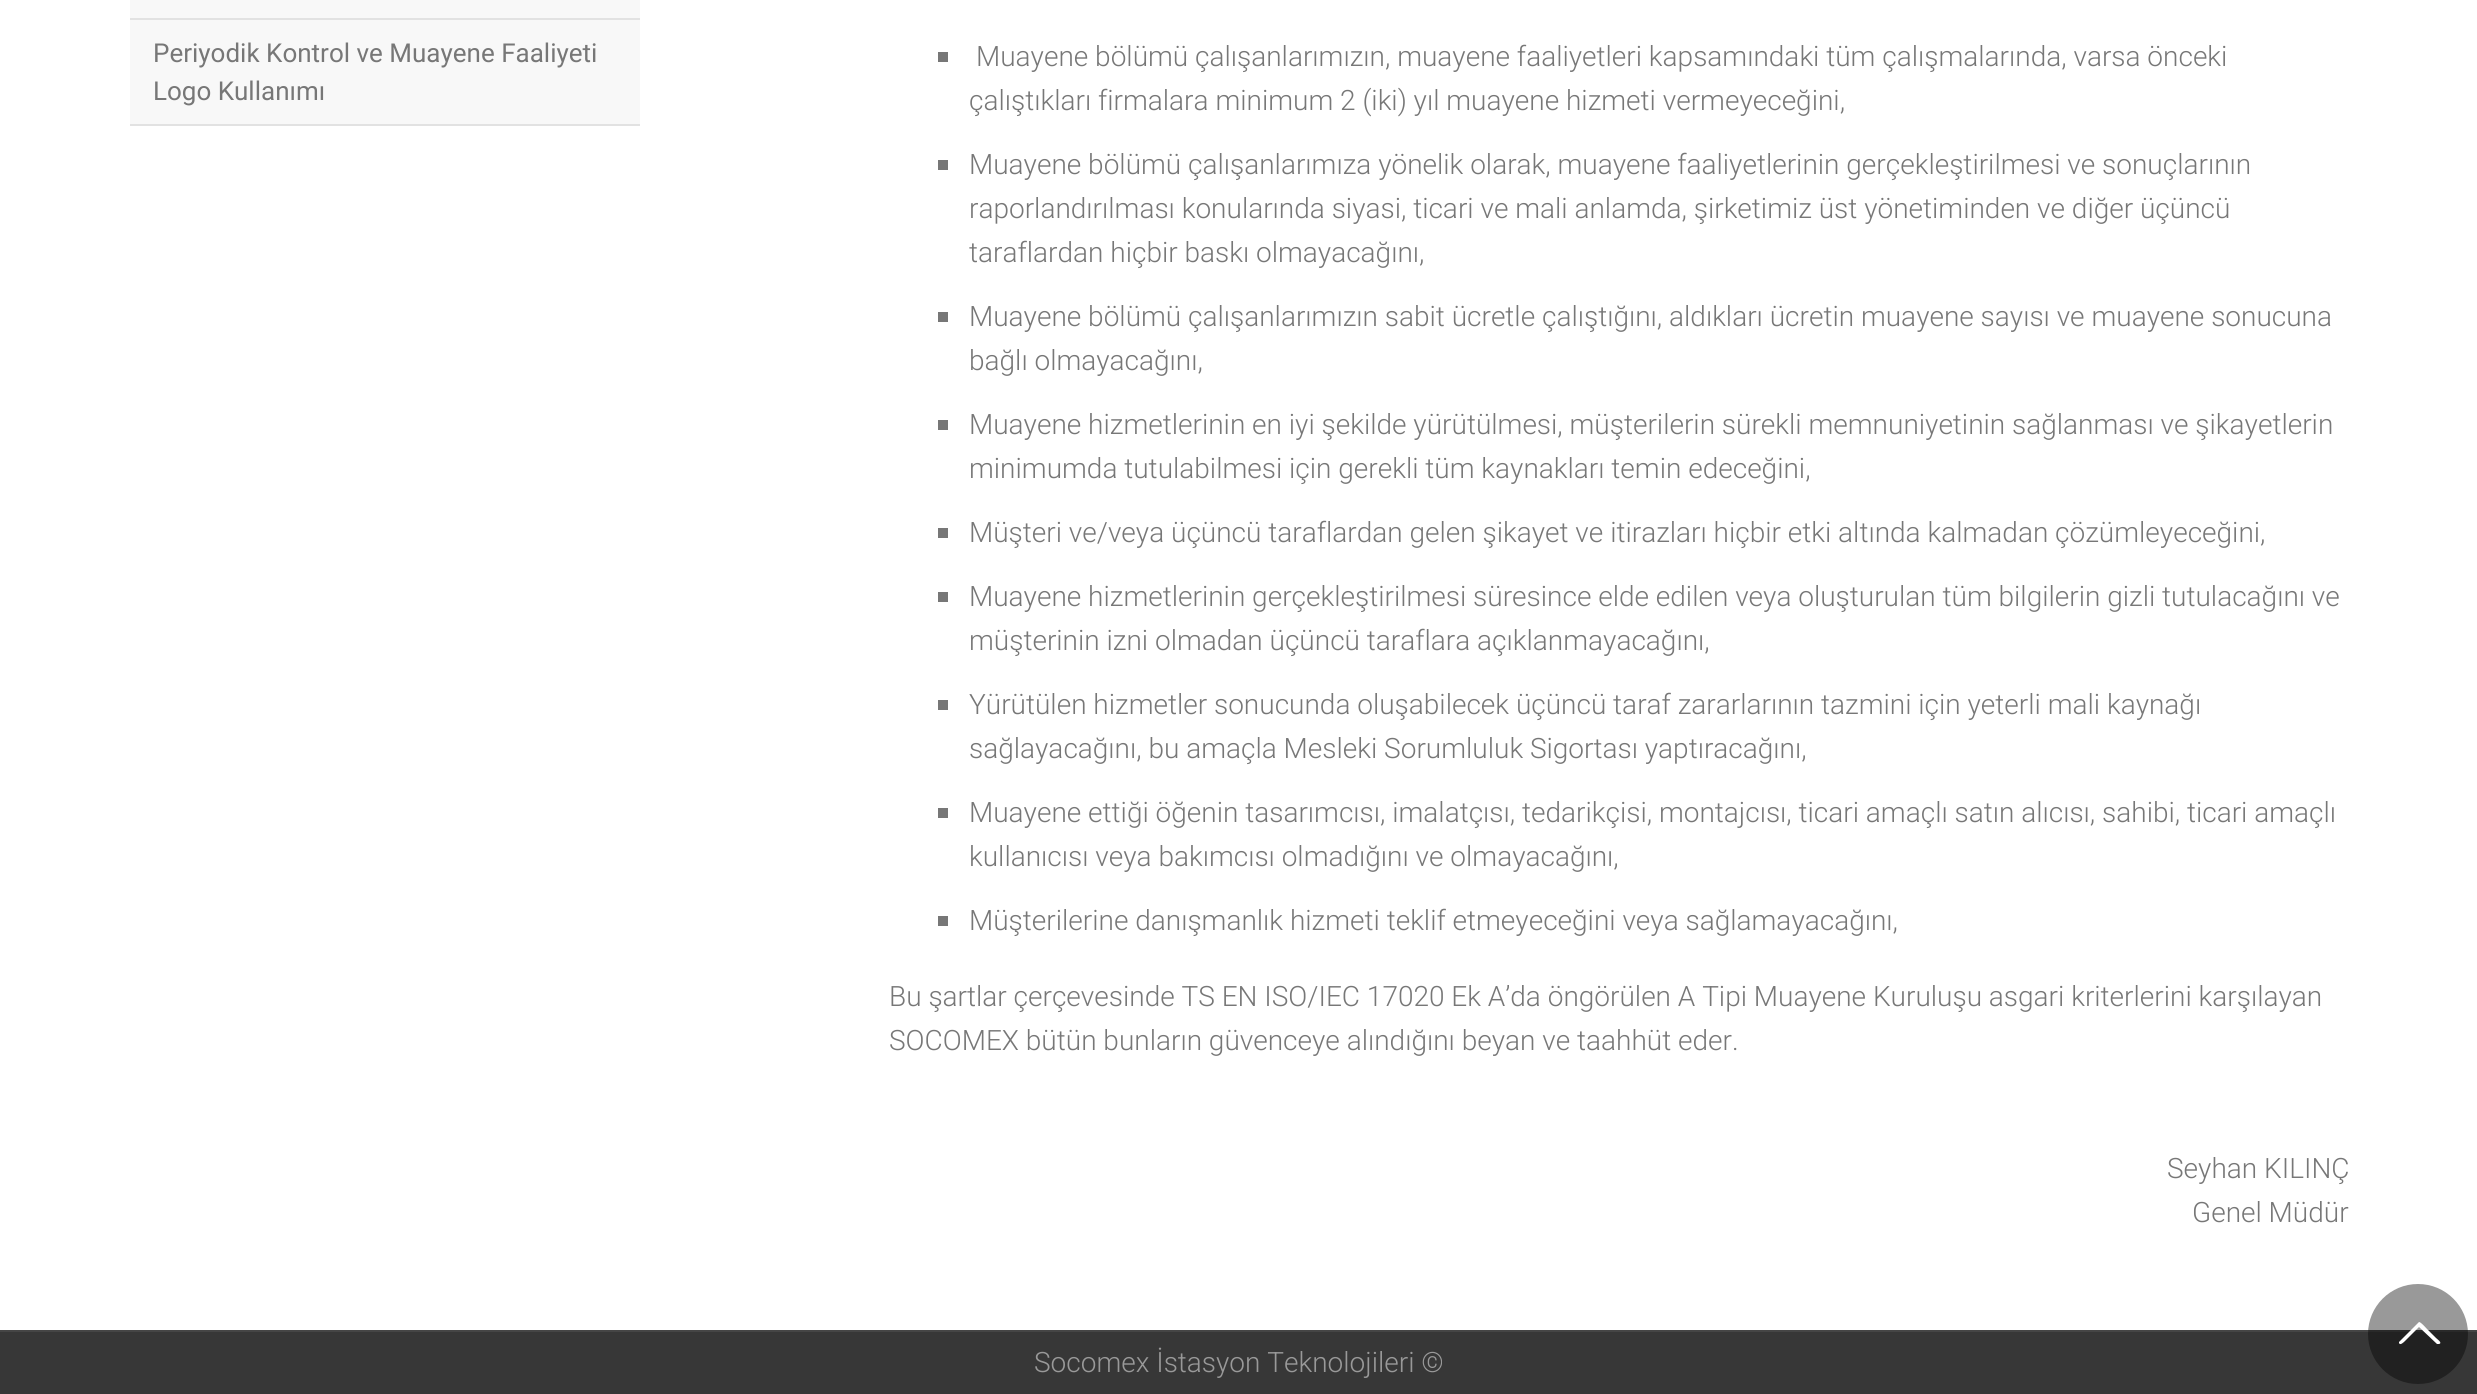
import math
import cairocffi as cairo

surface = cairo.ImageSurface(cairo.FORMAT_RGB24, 2477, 1394)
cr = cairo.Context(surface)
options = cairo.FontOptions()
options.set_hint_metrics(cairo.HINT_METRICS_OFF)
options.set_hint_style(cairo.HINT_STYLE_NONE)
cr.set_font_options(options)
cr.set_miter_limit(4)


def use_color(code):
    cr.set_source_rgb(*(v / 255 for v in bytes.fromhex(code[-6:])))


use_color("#ffffff")
cr.paint()
use_color("#f8f8f8")
cr.rectangle(130, 0, 510, 18)
cr.fill()
use_color("#e2e2e2")
cr.rectangle(130, 18, 510, 2)
cr.fill()
use_color("#f8f8f8")
cr.rectangle(130, 20, 510, 104)
cr.fill()
use_color("#e2e2e2")
cr.rectangle(130, 124, 510, 2)
cr.fill()
cr.select_font_face("Roboto")
cr.set_font_size(26)
use_color("#777777")
cr.move_to(153, 62)
cr.show_text("Periyodik Kontrol ve Muayene Faaliyeti")
cr.move_to(153, 100)
cr.show_text("Logo Kullanımı")
cr.rectangle(938, 52, 10, 10)
cr.fill()
cr.select_font_face("Roboto Light")
cr.set_font_size(28)
cr.move_to(976, 66)
cr.show_text("Muayene bölümü çalışanlarımızın, muayene faaliyetleri kapsamındaki tüm çalışmalarında, varsa önceki")
cr.move_to(969, 110)
cr.show_text("çalıştıkları firmalara minimum 2 (iki) yıl muayene hizmeti vermeyeceğini,")
cr.rectangle(938, 160, 10, 10)
cr.fill()
cr.move_to(969, 174)
cr.show_text("Muayene bölümü çalışanlarımıza yönelik olarak, muayene faaliyetlerinin gerçekleştirilmesi ve sonuçlarının")
cr.move_to(969, 218)
cr.show_text("raporlandırılması konularında siyasi, ticari ve mali anlamda, şirketimiz üst yönetiminden ve diğer üçüncü")
cr.move_to(969, 262)
cr.show_text("taraflardan hiçbir baskı olmayacağını,")
cr.rectangle(938, 312, 10, 10)
cr.fill()
cr.move_to(969, 326)
cr.show_text("Muayene bölümü çalışanlarımızın sabit ücretle çalıştığını, aldıkları ücretin muayene sayısı ve muayene sonucuna")
cr.move_to(969, 370)
cr.show_text("bağlı olmayacağını,")
cr.rectangle(938, 420, 10, 10)
cr.fill()
cr.move_to(969, 434)
cr.show_text("Muayene hizmetlerinin en iyi şekilde yürütülmesi, müşterilerin sürekli memnuniyetinin sağlanması ve şikayetlerin")
cr.move_to(969, 478)
cr.show_text("minimumda tutulabilmesi için gerekli tüm kaynakları temin edeceğini,")
cr.rectangle(938, 528, 10, 10)
cr.fill()
cr.move_to(969, 542)
cr.show_text("Müşteri ve/veya üçüncü taraflardan gelen şikayet ve itirazları hiçbir etki altında kalmadan çözümleyeceğini,")
cr.rectangle(938, 592, 10, 10)
cr.fill()
cr.move_to(969, 606)
cr.show_text("Muayene hizmetlerinin gerçekleştirilmesi süresince elde edilen veya oluşturulan tüm bilgilerin gizli tutulacağını ve")
cr.move_to(969, 650)
cr.show_text("müşterinin izni olmadan üçüncü taraflara açıklanmayacağını,")
cr.rectangle(938, 700, 10, 10)
cr.fill()
cr.move_to(969, 714)
cr.show_text("Yürütülen hizmetler sonucunda oluşabilecek üçüncü taraf zararlarının tazmini için yeterli mali kaynağı")
cr.move_to(969, 758)
cr.show_text("sağlayacağını, bu amaçla Mesleki Sorumluluk Sigortası yaptıracağını,")
cr.rectangle(938, 808, 10, 10)
cr.fill()
cr.move_to(969, 822)
cr.show_text("Muayene ettiği öğenin tasarımcısı, imalatçısı, tedarikçisi, montajcısı, ticari amaçlı satın alıcısı, sahibi, ticari amaçlı")
cr.move_to(969, 866)
cr.show_text("kullanıcısı veya bakımcısı olmadığını ve olmayacağını,")
cr.rectangle(938, 916, 10, 10)
cr.fill()
cr.move_to(969, 930)
cr.show_text("Müşterilerine danışmanlık hizmeti teklif etmeyeceğini veya sağlamayacağını,")
cr.move_to(889, 1006)
cr.show_text("Bu şartlar çerçevesinde TS EN ISO/IEC 17020 Ek A’da öngörülen A Tipi Muayene Kuruluşu asgari kriterlerini karşılayan")
cr.move_to(889, 1050)
cr.show_text("SOCOMEX bütün bunların güvenceye alındığını beyan ve taahhüt eder.")
cr.move_to(2167, 1178)
cr.show_text("Seyhan KILINÇ")
cr.move_to(2192, 1222)
cr.show_text("Genel Müdür")
use_color("#373737")
cr.rectangle(0, 1332, 2477, 62)
cr.fill()
use_color("#454545")
cr.rectangle(0, 1330, 2477, 2)
cr.fill()
use_color("#999999")
cr.move_to(1034, 1372)
cr.show_text("Socomex İstasyon Teknolojileri ©")
cr.set_source_rgba(0, 0, 0, 0.4)
cr.new_path()
cr.arc(2418, 1334, 50, 0, 2 * math.pi)
cr.fill()
use_color("#ffffff")
cr.new_path()
cr.move_to(2437, 1344)
cr.line_to(2419, 1327)
cr.line_to(2405, 1341)
cr.curve_to(2404, 1342, 2400, 1346, 2399, 1343)
cr.line_to(2399, 1342)
cr.line_to(2419, 1322)
cr.curve_to(2421, 1322, 2426, 1328, 2427, 1329)
cr.line_to(2436, 1338)
cr.curve_to(2437, 1339, 2443, 1343, 2439, 1344)
cr.close_path()
cr.fill()
surface.write_to_png("result.png")
